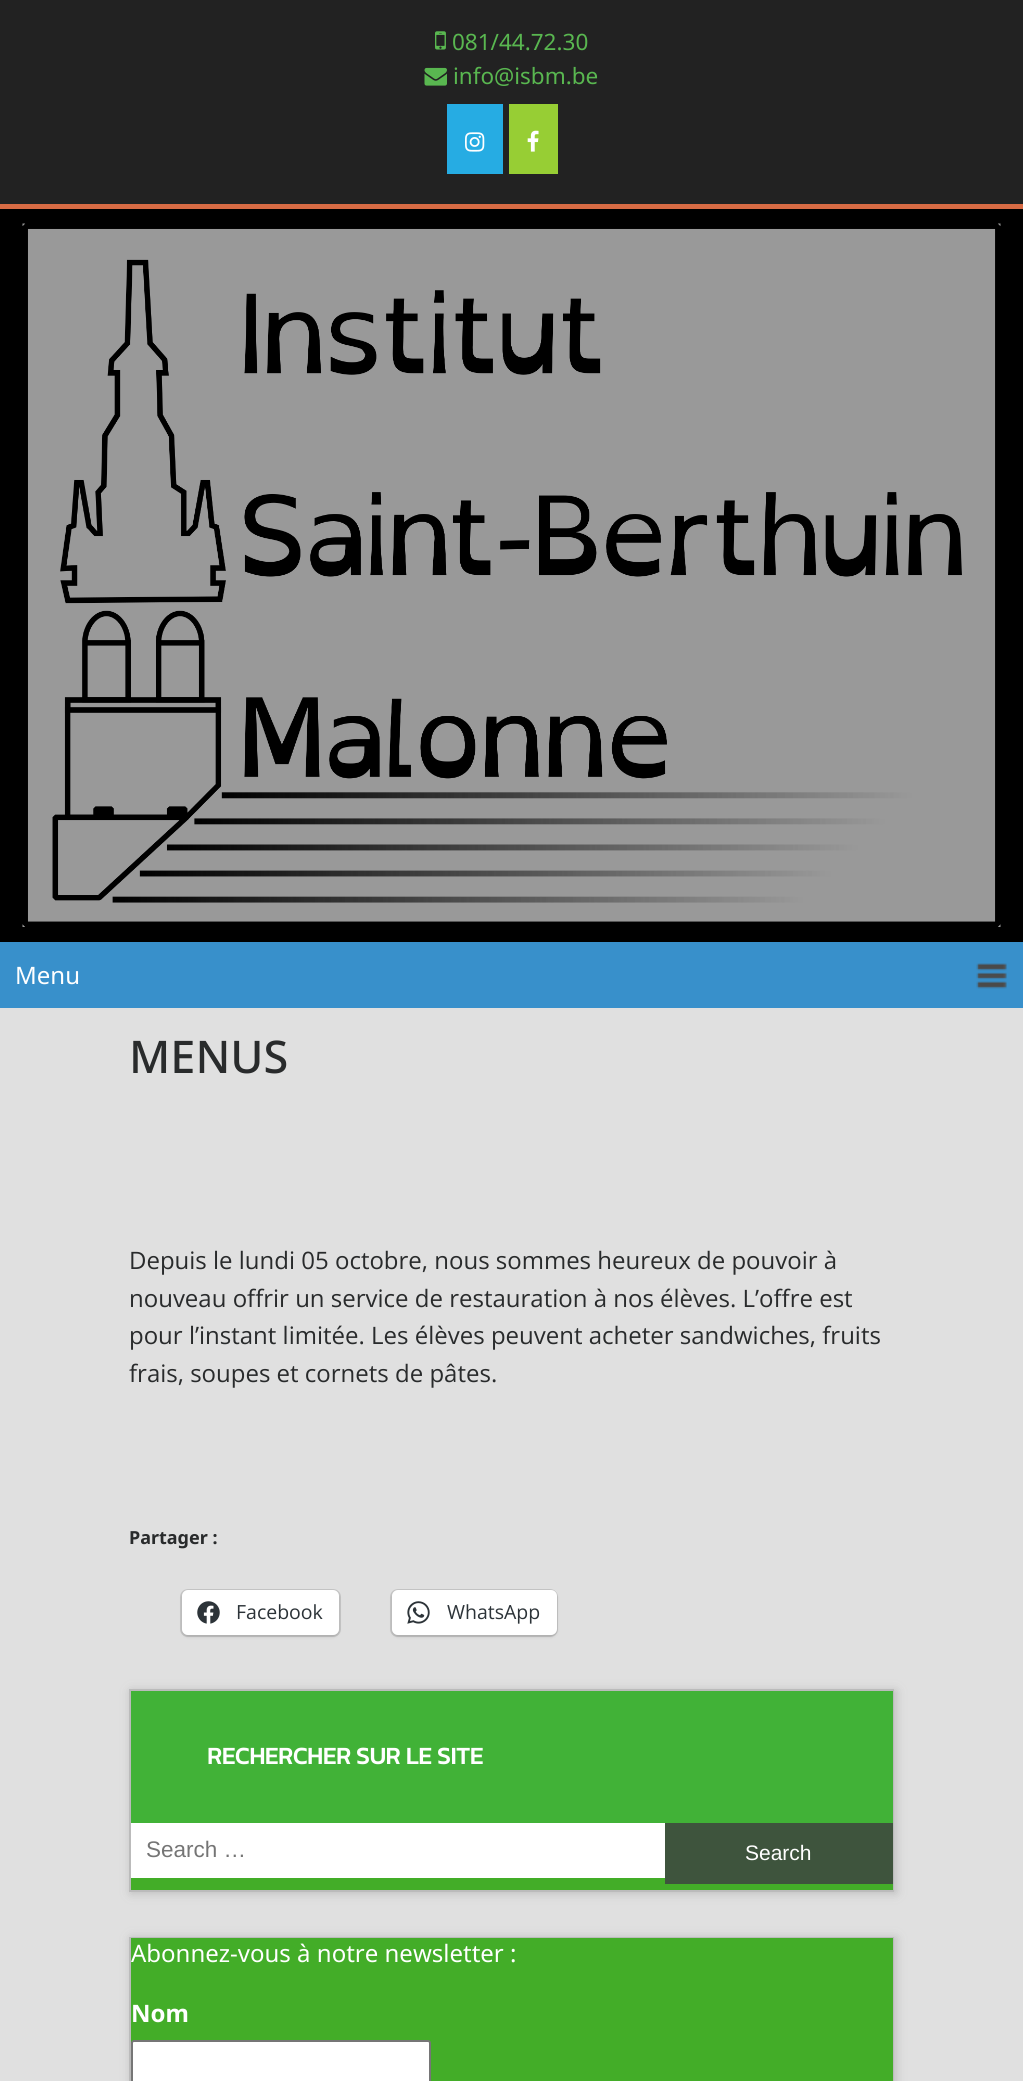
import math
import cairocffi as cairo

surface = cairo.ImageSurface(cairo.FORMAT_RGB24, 1023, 2081)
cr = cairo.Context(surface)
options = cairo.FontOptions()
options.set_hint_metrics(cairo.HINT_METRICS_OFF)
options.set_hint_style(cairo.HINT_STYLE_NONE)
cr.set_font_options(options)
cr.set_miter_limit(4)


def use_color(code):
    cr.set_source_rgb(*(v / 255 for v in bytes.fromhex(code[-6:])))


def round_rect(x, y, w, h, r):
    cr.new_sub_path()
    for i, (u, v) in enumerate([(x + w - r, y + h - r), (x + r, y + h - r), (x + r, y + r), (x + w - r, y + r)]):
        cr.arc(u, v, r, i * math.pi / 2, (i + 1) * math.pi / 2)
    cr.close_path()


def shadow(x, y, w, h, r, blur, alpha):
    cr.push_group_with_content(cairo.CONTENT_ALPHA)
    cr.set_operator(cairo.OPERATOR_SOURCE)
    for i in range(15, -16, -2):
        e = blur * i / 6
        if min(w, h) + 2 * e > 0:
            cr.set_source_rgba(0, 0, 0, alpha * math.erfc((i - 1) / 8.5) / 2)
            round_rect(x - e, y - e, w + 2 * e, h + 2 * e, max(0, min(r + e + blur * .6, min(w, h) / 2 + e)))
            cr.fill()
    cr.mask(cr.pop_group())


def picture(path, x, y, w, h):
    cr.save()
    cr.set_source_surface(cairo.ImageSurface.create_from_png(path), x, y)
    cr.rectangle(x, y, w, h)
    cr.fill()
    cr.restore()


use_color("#e0e0e0")
cr.paint()
use_color("#222222")
cr.rectangle(0, 0, 1023, 204)
cr.fill()
use_color("#d76b44")
cr.rectangle(0, 204, 1023, 5)
cr.fill()
picture("img1.png", 435, 31, 11, 19)
cr.select_font_face("Noto Sans")
cr.set_font_size(22.5)
use_color("#59b750")
cr.move_to(452, 50)
cr.show_text("081/44.72.30")
picture("img2.png", 424, 67, 23, 19)
cr.move_to(453, 84)
cr.show_text("info@isbm.be")
use_color("#26ace3")
cr.rectangle(447, 104, 56, 70)
cr.fill()
picture("img3.png", 465, 132, 20, 20)
use_color("#97ce34")
cr.rectangle(509, 104, 49, 70)
cr.fill()
picture("img4.png", 527, 130, 12, 22)
use_color("#000000")
cr.rectangle(0, 209, 1023, 733)
cr.fill()
picture("img5.png", 22, 223, 979, 704)
use_color("#3890cb")
cr.rectangle(0, 942, 1023, 66)
cr.fill()
picture("img6.png", 976, 963, 31, 26)
cr.set_font_size(24)
use_color("#ffffff")
cr.move_to(15, 984)
cr.show_text("Menu")
cr.select_font_face("Noto Sans Medium")
cr.set_font_size(45)
use_color("#292b2c")
cr.move_to(129, 1073)
cr.show_text("MENUS")
cr.select_font_face("Open Sans")
cr.set_font_size(24)
cr.move_to(129, 1269)
cr.show_text("Depuis le lundi 05 octobre, nous sommes heureux de pouvoir à")
cr.move_to(129, 1307)
cr.show_text("nouveau offrir un service de restauration à nos élèves. L’offre est")
cr.move_to(129, 1344)
cr.show_text("pour l’instant limitée. Les élèves peuvent acheter sandwiches, fruits")
cr.move_to(129, 1382)
cr.show_text("frais, soupes et cornets de pâtes.")
cr.select_font_face("Noto Sans", cairo.FONT_SLANT_NORMAL, cairo.FONT_WEIGHT_BOLD)
cr.set_font_size(18)
cr.move_to(129, 1544)
cr.show_text("Partager :")
round_rect(181, 1590, 159, 46, 7)
use_color("#c5c5c5")
cr.stroke()
use_color("#000000")
shadow(182, 1592, 157, 45, 6, 1.5, 0.12)
use_color("#ffffff")
round_rect(182, 1590, 157, 45, 6)
cr.fill()
picture("img7.png", 197, 1601, 23, 23)
cr.select_font_face("Open Sans")
cr.set_font_size(19.5)
use_color("#2c3338")
cr.move_to(236, 1619)
cr.show_text("Facebook")
round_rect(391, 1590, 166, 46, 7)
use_color("#c5c5c5")
cr.stroke()
use_color("#000000")
shadow(392, 1592, 165, 45, 6, 1.5, 0.12)
use_color("#ffffff")
round_rect(392, 1590, 165, 45, 6)
cr.fill()
picture("img8.png", 407, 1601, 23, 23)
use_color("#2c3338")
cr.move_to(447, 1619)
cr.show_text("WhatsApp")
use_color("#bbbbbb")
shadow(131, 1691, 765, 202, 0, 5, 1)
cr.rectangle(130, 1690, 763, 201)
use_color("#bbbbbb")
cr.stroke()
use_color("#41b237")
cr.rectangle(131, 1691, 762, 132)
cr.fill()
cr.select_font_face("Kanit", cairo.FONT_SLANT_NORMAL, cairo.FONT_WEIGHT_BOLD)
cr.set_font_size(24)
use_color("#ffffff")
cr.move_to(207, 1764)
cr.show_text("RECHERCHER SUR LE SITE")
use_color("#43ad28")
cr.rectangle(131, 1878, 762, 12)
cr.fill()
use_color("#ffffff")
cr.rectangle(131, 1823, 534, 55)
cr.fill()
cr.select_font_face("Liberation Sans")
cr.set_font_size(22.5)
use_color("#757575")
cr.move_to(146, 1857)
cr.show_text("Search …")
use_color("#3e543d")
cr.rectangle(665, 1823, 228, 61)
cr.fill()
cr.set_font_size(21)
use_color("#ffffff")
cr.move_to(745, 1860)
cr.show_text("Search")
use_color("#bbbbbb")
shadow(131, 1938, 765, 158, 0, 5, 1)
cr.rectangle(130, 1938, 763, 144)
use_color("#bbbbbb")
cr.stroke()
use_color("#43ad28")
cr.rectangle(131, 1938, 762, 143)
cr.fill()
cr.select_font_face("Noto Sans")
cr.set_font_size(24)
use_color("#ffffff")
cr.move_to(131, 1962)
cr.show_text("Abonnez-vous à notre newsletter :")
cr.select_font_face("Noto Sans", cairo.FONT_SLANT_NORMAL, cairo.FONT_WEIGHT_BOLD)
cr.move_to(131, 2022)
cr.show_text("Nom")
round_rect(132, 2041, 298, 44, 2)
cr.fill_preserve()
use_color("#767676")
cr.stroke()
surface.write_to_png("result.png")
